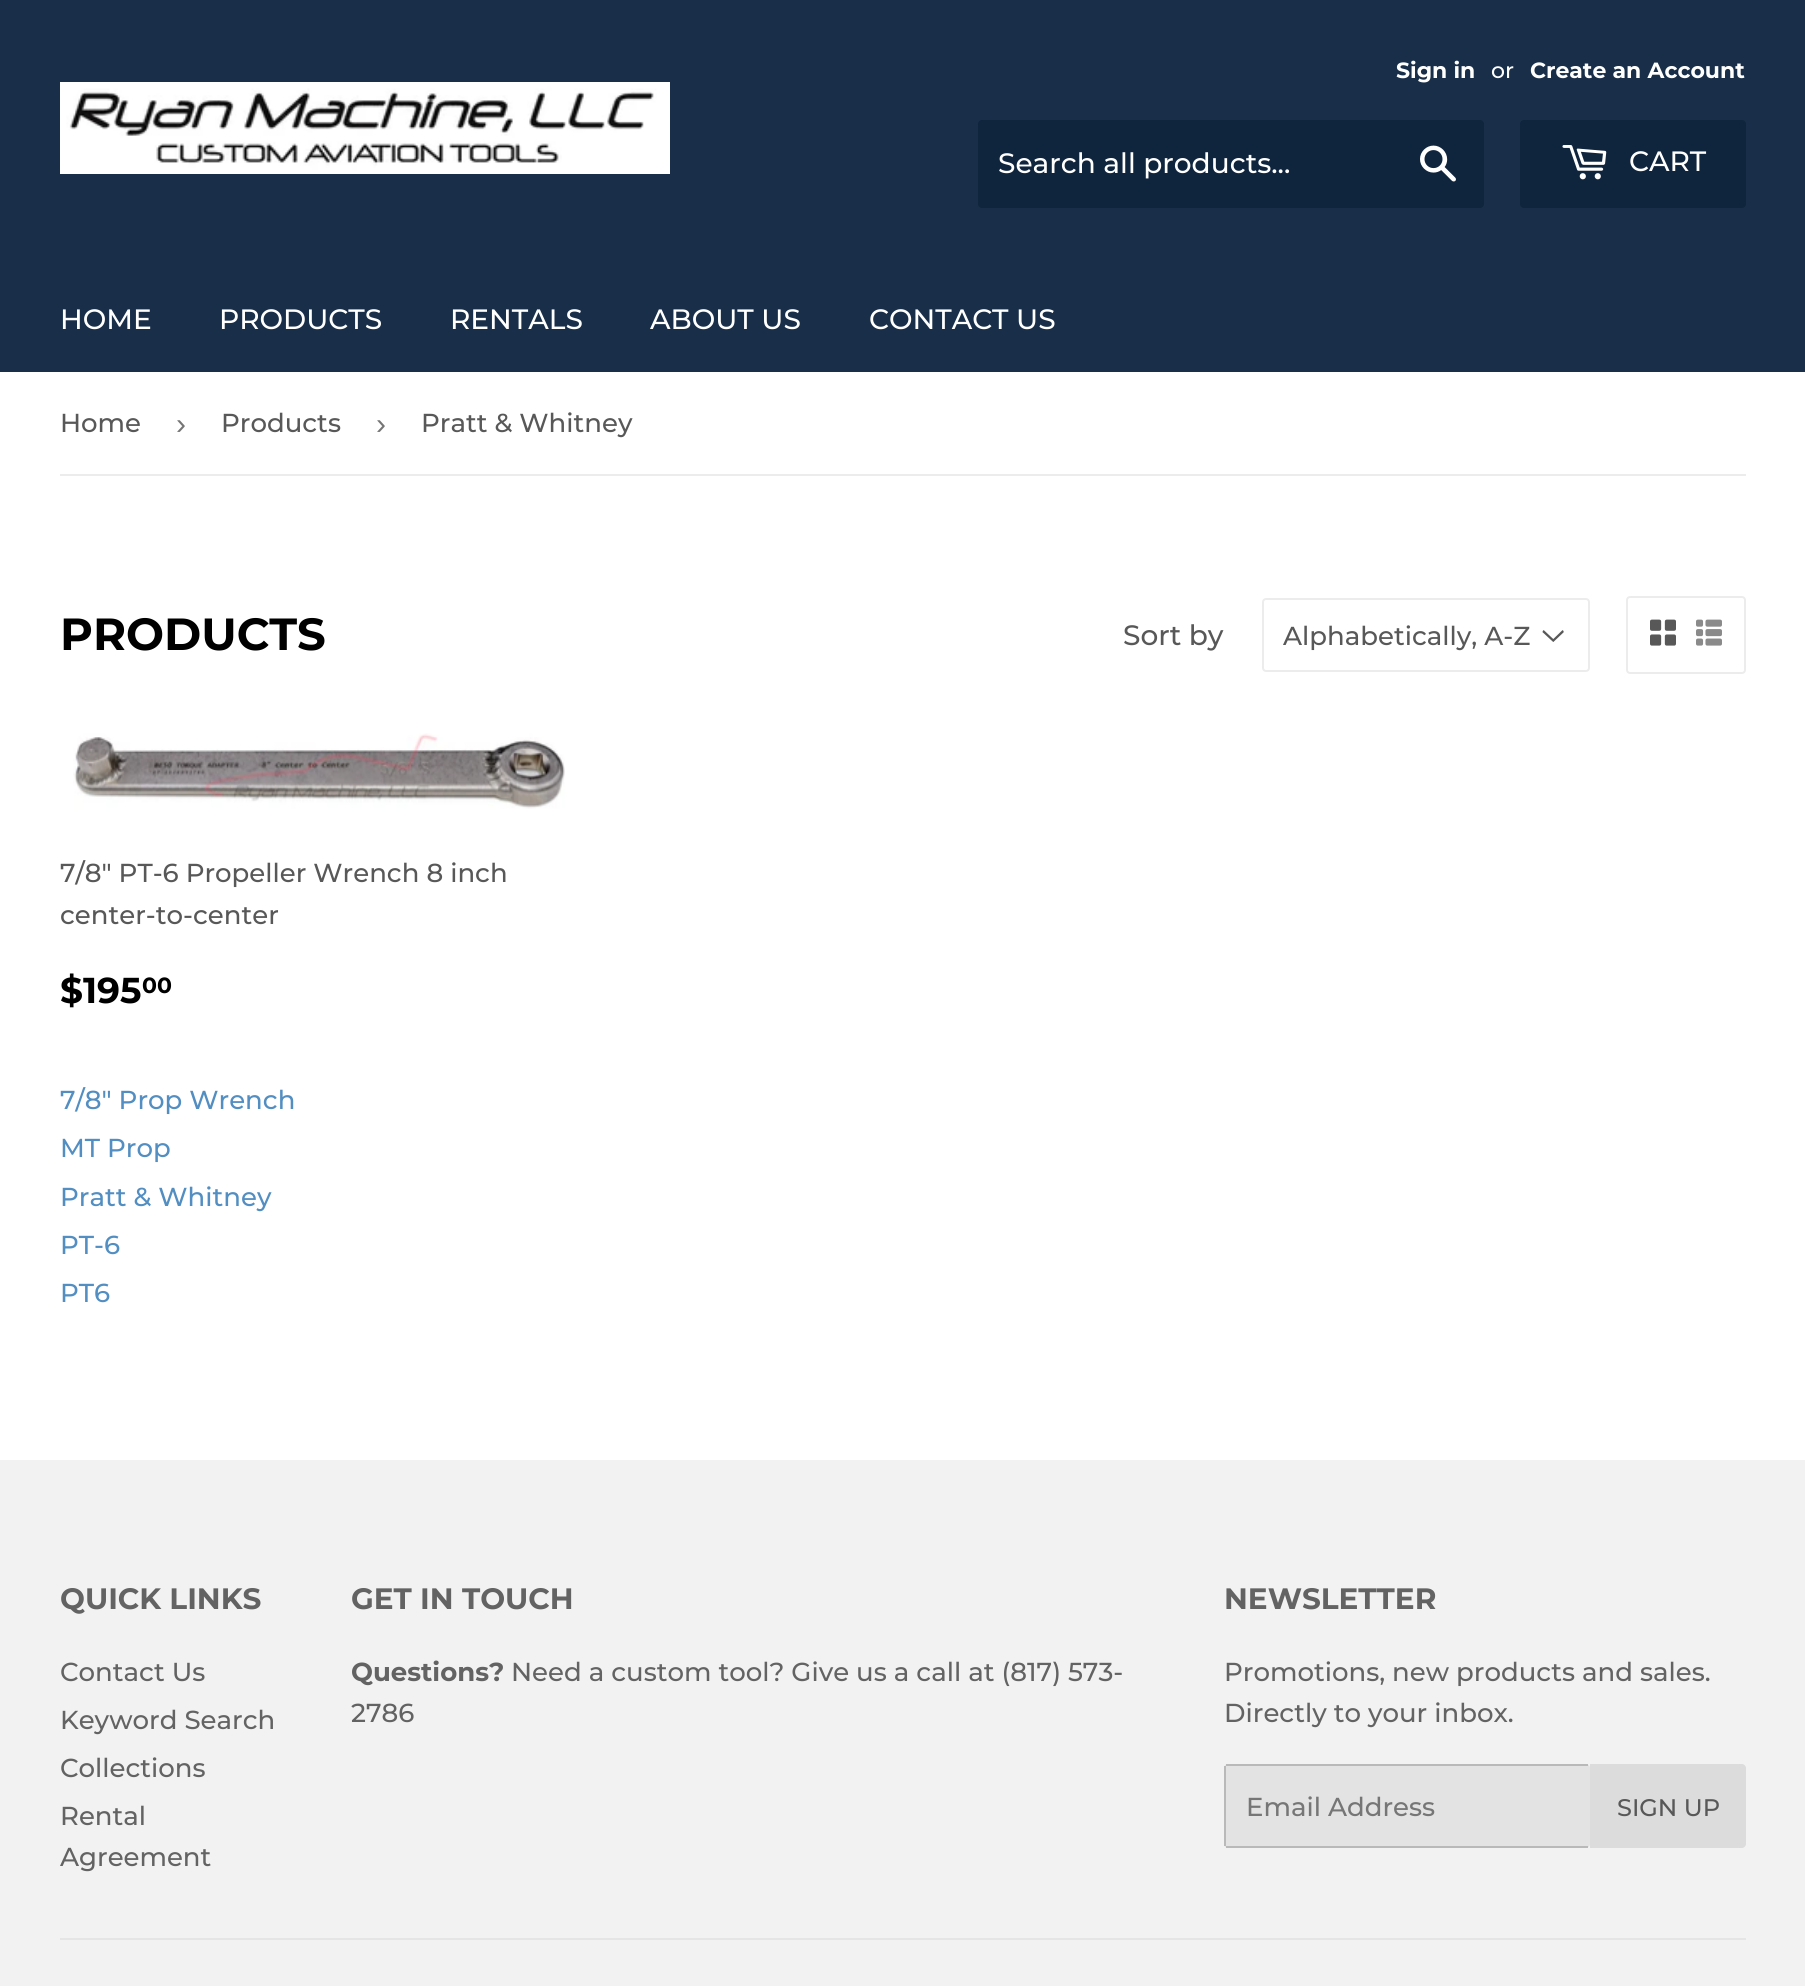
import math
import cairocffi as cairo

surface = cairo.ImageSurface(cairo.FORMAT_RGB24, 1805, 1986)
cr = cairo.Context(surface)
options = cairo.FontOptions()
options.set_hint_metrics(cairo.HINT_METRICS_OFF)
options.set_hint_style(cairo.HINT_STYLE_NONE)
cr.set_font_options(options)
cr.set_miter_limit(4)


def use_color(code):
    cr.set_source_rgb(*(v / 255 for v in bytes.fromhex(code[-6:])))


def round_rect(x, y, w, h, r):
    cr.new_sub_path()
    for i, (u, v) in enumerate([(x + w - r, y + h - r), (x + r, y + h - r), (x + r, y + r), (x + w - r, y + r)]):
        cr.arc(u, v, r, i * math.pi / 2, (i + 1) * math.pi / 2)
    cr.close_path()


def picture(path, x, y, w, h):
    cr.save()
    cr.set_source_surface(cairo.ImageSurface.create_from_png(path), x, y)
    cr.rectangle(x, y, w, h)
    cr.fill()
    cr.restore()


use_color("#ffffff")
cr.paint()
use_color("#182e49")
cr.rectangle(0, 0, 1805, 372)
cr.fill()
picture("img1.png", 60, 82, 610, 92)
cr.select_font_face("Montserrat", cairo.FONT_SLANT_NORMAL, cairo.FONT_WEIGHT_BOLD)
cr.set_font_size(22)
use_color("#ffffff")
cr.move_to(1396, 78)
cr.show_text("Sign in")
cr.select_font_face("Montserrat Medium")
cr.move_to(1491, 78)
cr.show_text("or")
cr.select_font_face("Montserrat", cairo.FONT_SLANT_NORMAL, cairo.FONT_WEIGHT_BOLD)
cr.move_to(1530, 78)
cr.show_text("Create an Account")
use_color("#0f243d")
round_rect(978, 120, 506, 88, 4)
cr.fill()
cr.select_font_face("Montserrat Medium")
cr.set_font_size(28)
use_color("#ffffff")
cr.move_to(998, 173)
cr.show_text("Search all products...")
picture("img2.png", 1420, 145, 36, 37)
use_color("#0f243d")
round_rect(1520, 120, 226, 88, 4)
cr.fill()
picture("img3.png", 1562, 145, 45, 35)
use_color("#ffffff")
cr.move_to(1629, 171)
cr.show_text("CART")
cr.move_to(60, 329)
cr.show_text("HOME")
cr.move_to(219, 329)
cr.show_text("PRODUCTS")
cr.move_to(450, 329)
cr.show_text("RENTALS")
cr.move_to(650, 329)
cr.show_text("ABOUT US")
cr.move_to(869, 329)
cr.show_text("CONTACT US")
use_color("#ececec")
cr.rectangle(60, 474, 1686, 2)
cr.fill()
cr.set_font_size(26)
use_color("#585858")
cr.move_to(60, 432)
cr.show_text("Home")
cr.select_font_face("Liberation Sans")
cr.set_font_size(30)
use_color("#767676")
cr.move_to(176, 434)
cr.show_text("›")
cr.select_font_face("Montserrat Medium")
cr.set_font_size(26)
use_color("#585858")
cr.move_to(221, 432)
cr.show_text("Products")
cr.select_font_face("Liberation Sans")
cr.set_font_size(30)
use_color("#767676")
cr.move_to(376, 434)
cr.show_text("›")
cr.select_font_face("Montserrat Medium")
cr.set_font_size(26)
use_color("#585858")
cr.move_to(421, 432)
cr.show_text("Pratt & Whitney")
cr.select_font_face("Montserrat", cairo.FONT_SLANT_NORMAL, cairo.FONT_WEIGHT_BOLD)
cr.set_font_size(45)
use_color("#000000")
cr.move_to(60, 650)
cr.show_text("PRODUCTS")
cr.select_font_face("Montserrat Medium")
cr.set_font_size(28)
use_color("#585858")
cr.move_to(1123, 645)
cr.show_text("Sort by")
picture("img4.png", 1542, 630, 22, 12)
round_rect(1263, 599, 326, 72, 3)
use_color("#ececec")
cr.stroke()
cr.set_font_size(26)
use_color("#585858")
cr.move_to(1283, 645)
cr.show_text("Alphabetically, A-Z")
round_rect(1627, 597, 118, 76, 3)
use_color("#ececec")
cr.stroke()
picture("img5.png", 1650, 619, 26, 27)
picture("img6.png", 1696, 619, 26, 27)
picture("img7.png", 73, 733, 492, 76)
use_color("#585858")
cr.move_to(60, 882)
cr.show_text("7/8\" PT-6 Propeller Wrench 8 inch")
cr.move_to(60, 924)
cr.show_text("center-to-center")
cr.select_font_face("Montserrat", cairo.FONT_SLANT_NORMAL, cairo.FONT_WEIGHT_BOLD)
cr.set_font_size(36)
use_color("#000000")
cr.move_to(60, 1003)
cr.show_text("$195")
cr.set_font_size(22)
cr.move_to(142, 993)
cr.show_text("00")
cr.select_font_face("Montserrat Medium")
cr.set_font_size(26)
use_color("#528ec1")
cr.move_to(60, 1109)
cr.show_text("7/8\" Prop Wrench")
cr.move_to(60, 1157)
cr.show_text("MT Prop")
cr.move_to(60, 1206)
cr.show_text("Pratt & Whitney")
cr.move_to(60, 1254)
cr.show_text("PT-6")
cr.move_to(60, 1302)
cr.show_text("PT6")
use_color("#f2f2f2")
cr.rectangle(0, 1460, 1805, 526)
cr.fill()
cr.select_font_face("Montserrat", cairo.FONT_SLANT_NORMAL, cairo.FONT_WEIGHT_BOLD)
cr.set_font_size(29.5)
use_color("#636363")
cr.move_to(60, 1609)
cr.show_text("QUICK LINKS")
cr.select_font_face("Montserrat Medium")
cr.set_font_size(26)
cr.move_to(60, 1681)
cr.show_text("Contact Us")
cr.move_to(60, 1729)
cr.show_text("Keyword Search")
cr.move_to(60, 1777)
cr.show_text("Collections")
cr.move_to(60, 1825)
cr.show_text("Rental")
cr.move_to(60, 1866)
cr.show_text("Agreement")
cr.select_font_face("Montserrat", cairo.FONT_SLANT_NORMAL, cairo.FONT_WEIGHT_BOLD)
cr.set_font_size(29.5)
cr.move_to(351, 1609)
cr.show_text("GET IN TOUCH")
cr.set_font_size(26)
cr.move_to(351, 1681)
cr.show_text("Questions?")
cr.select_font_face("Montserrat Medium")
cr.move_to(511, 1681)
cr.show_text("Need a custom tool? Give us a call at (817) 573-")
cr.move_to(351, 1722)
cr.show_text("2786")
cr.select_font_face("Montserrat", cairo.FONT_SLANT_NORMAL, cairo.FONT_WEIGHT_BOLD)
cr.set_font_size(29.5)
cr.move_to(1224, 1609)
cr.show_text("NEWSLETTER")
cr.select_font_face("Montserrat Medium")
cr.set_font_size(26)
cr.move_to(1224, 1681)
cr.show_text("Promotions, new products and sales.")
cr.move_to(1224, 1722)
cr.show_text("Directly to your inbox.")
use_color("#e3e3e3")
round_rect(1224, 1764, 366, 84, 4)
cr.fill()
use_color("#b9b9b9")
cr.rectangle(1226, 1764, 362, 2)
cr.fill()
cr.rectangle(1226, 1846, 362, 2)
cr.fill()
cr.rectangle(1224, 1766, 2, 80)
cr.fill()
use_color("#767676")
cr.move_to(1246, 1816)
cr.show_text("Email Address")
use_color("#dcdcdc")
cr.new_path()
cr.move_to(1590, 1764)
cr.line_to(1742, 1764)
cr.curve_to(1744, 1764, 1746, 1766, 1746, 1768)
cr.line_to(1746, 1844)
cr.curve_to(1746, 1846, 1744, 1848, 1742, 1848)
cr.line_to(1590, 1848)
cr.close_path()
cr.fill()
cr.set_font_size(24)
use_color("#585858")
cr.move_to(1617, 1816)
cr.show_text("SIGN UP")
use_color("#e5e5e5")
cr.rectangle(60, 1938, 1686, 2)
cr.fill()
surface.write_to_png("result.png")
